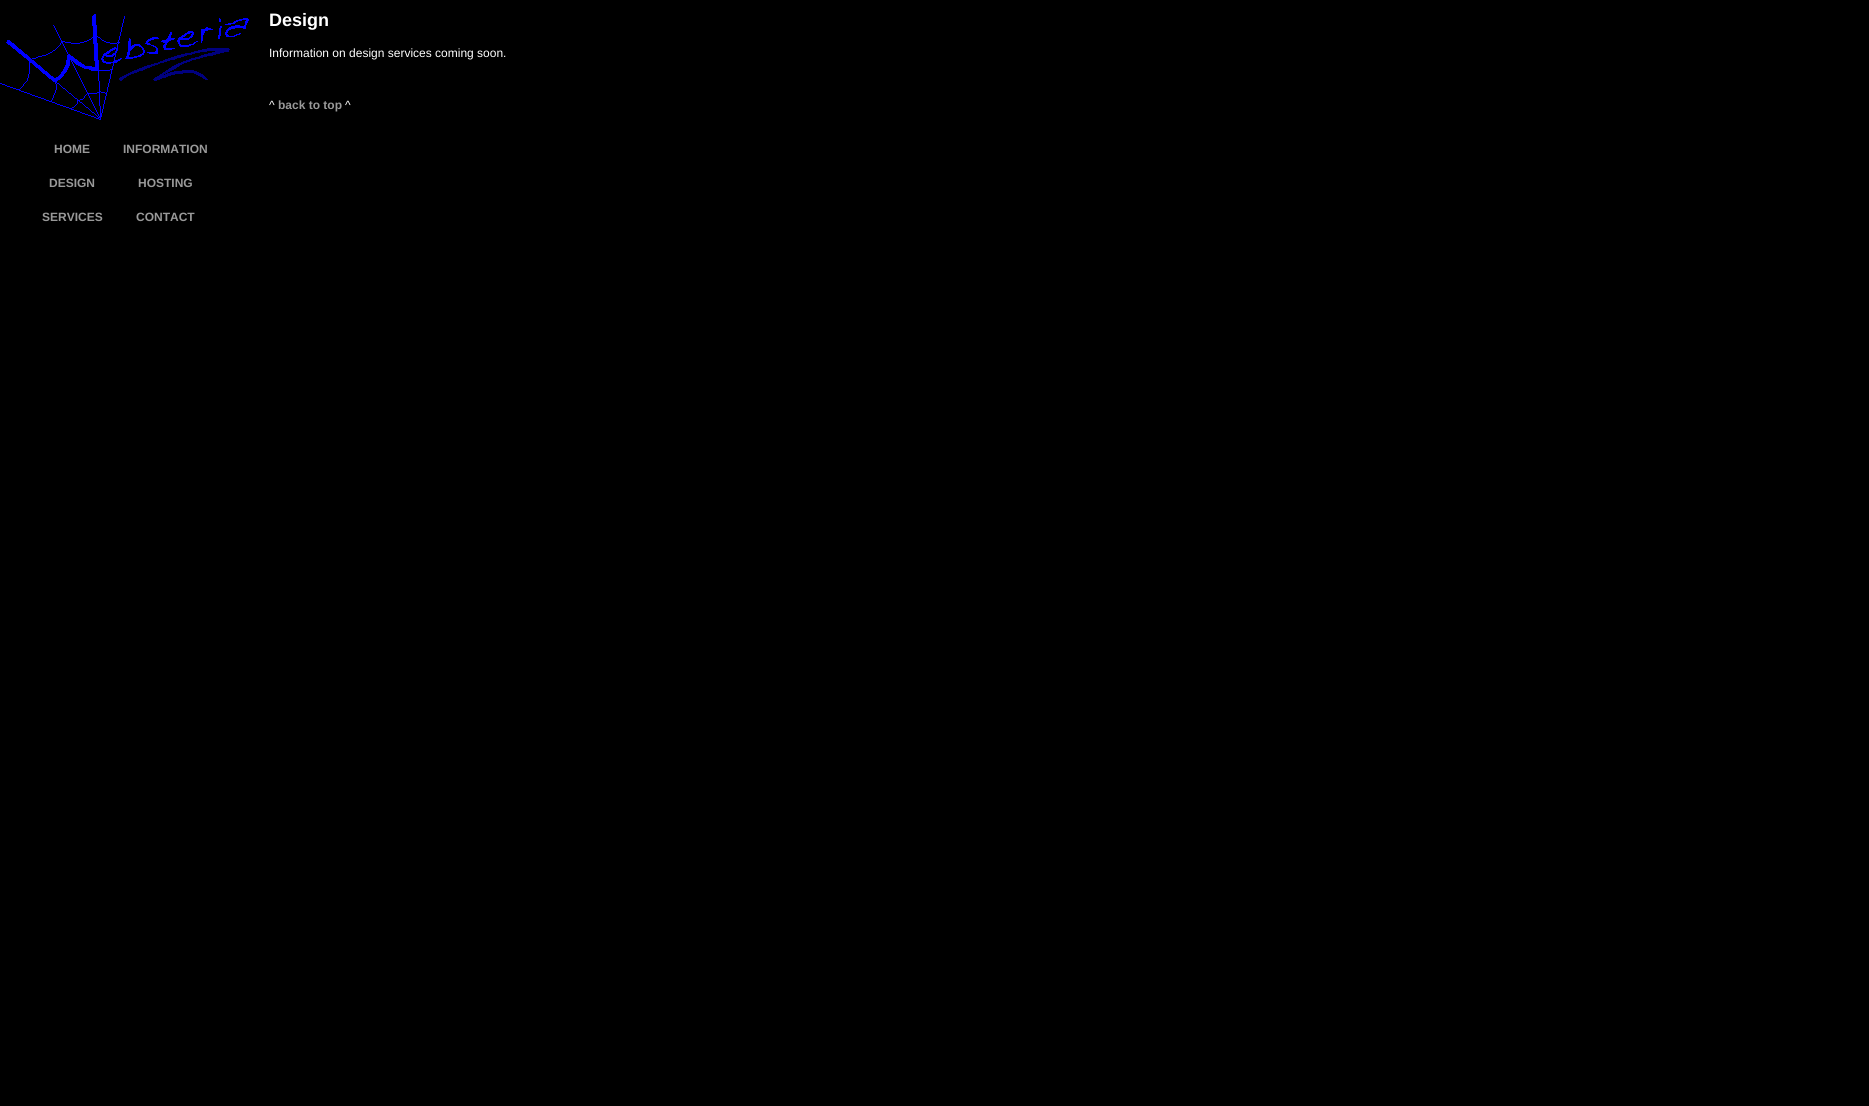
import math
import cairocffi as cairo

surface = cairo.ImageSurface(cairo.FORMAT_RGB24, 1869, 1106)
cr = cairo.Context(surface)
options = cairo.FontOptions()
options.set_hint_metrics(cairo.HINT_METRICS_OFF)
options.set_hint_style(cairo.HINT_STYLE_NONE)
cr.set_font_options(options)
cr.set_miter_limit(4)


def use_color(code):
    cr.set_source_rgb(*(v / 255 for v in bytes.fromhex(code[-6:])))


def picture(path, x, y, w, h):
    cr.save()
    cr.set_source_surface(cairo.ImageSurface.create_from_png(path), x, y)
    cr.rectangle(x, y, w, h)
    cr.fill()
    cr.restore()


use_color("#000000")
cr.paint()
cr.select_font_face("Liberation Sans", cairo.FONT_SLANT_NORMAL, cairo.FONT_WEIGHT_BOLD)
cr.set_font_size(18)
use_color("#ffffff")
cr.move_to(269, 26)
cr.show_text("Design")
cr.select_font_face("Liberation Sans")
cr.set_font_size(12)
cr.move_to(269, 57)
cr.show_text("Information on design services coming soon.")
cr.move_to(269, 109)
cr.show_text("^")
cr.select_font_face("Liberation Sans", cairo.FONT_SLANT_NORMAL, cairo.FONT_WEIGHT_BOLD)
use_color("#999999")
cr.move_to(278, 109)
cr.show_text("back to top")
cr.select_font_face("Liberation Sans")
use_color("#ffffff")
cr.move_to(345, 109)
cr.show_text("^")
picture("img1.png", 0, 14, 249, 106)
cr.select_font_face("Liberation Sans", cairo.FONT_SLANT_NORMAL, cairo.FONT_WEIGHT_BOLD)
use_color("#999999")
cr.move_to(54, 153)
cr.show_text("HOME")
cr.move_to(123, 153)
cr.show_text("INFORMATION")
cr.move_to(49, 187)
cr.show_text("DESIGN")
cr.move_to(138, 187)
cr.show_text("HOSTING")
cr.move_to(42, 221)
cr.show_text("SERVICES")
cr.move_to(136, 221)
cr.show_text("CONTACT")
surface.write_to_png("result.png")
